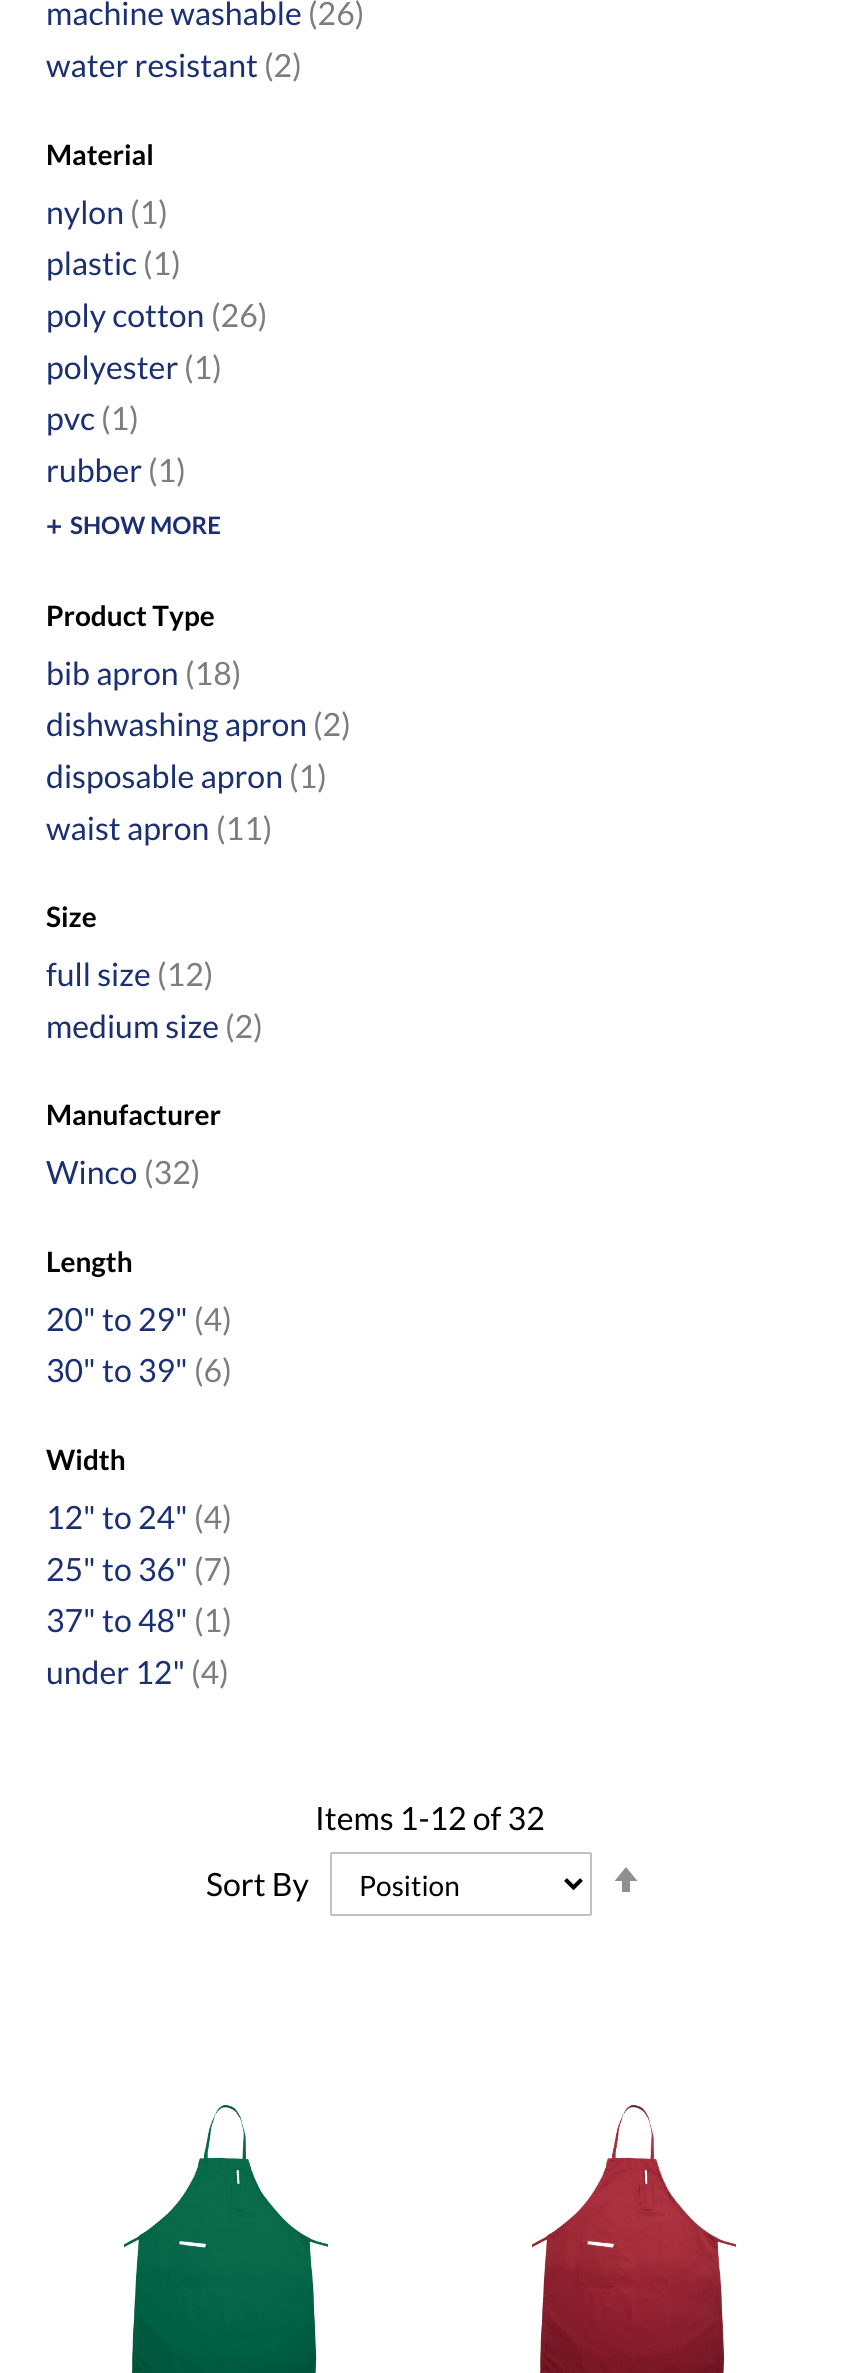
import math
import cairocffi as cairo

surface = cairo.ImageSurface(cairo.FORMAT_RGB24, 859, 2373)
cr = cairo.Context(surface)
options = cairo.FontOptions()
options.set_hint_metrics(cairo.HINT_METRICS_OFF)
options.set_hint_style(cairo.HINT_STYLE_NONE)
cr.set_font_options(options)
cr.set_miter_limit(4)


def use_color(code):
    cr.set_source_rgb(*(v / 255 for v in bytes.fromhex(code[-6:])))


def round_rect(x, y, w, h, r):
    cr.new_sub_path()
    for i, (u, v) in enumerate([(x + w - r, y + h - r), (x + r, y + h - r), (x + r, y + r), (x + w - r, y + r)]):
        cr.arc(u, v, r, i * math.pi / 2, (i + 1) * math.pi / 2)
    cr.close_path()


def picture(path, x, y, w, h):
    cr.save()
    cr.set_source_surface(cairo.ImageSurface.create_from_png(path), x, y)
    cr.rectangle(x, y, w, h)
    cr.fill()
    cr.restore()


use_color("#ffffff")
cr.paint()
cr.select_font_face("Lato")
cr.set_font_size(32)
use_color("#1b3073")
cr.move_to(46, 25)
cr.show_text("machine washable")
use_color("#7d7d7d")
cr.move_to(308, 25)
cr.show_text("(26)")
use_color("#1b3073")
cr.move_to(46, 77)
cr.show_text("water resistant")
use_color("#7d7d7d")
cr.move_to(264, 77)
cr.show_text("(2)")
cr.select_font_face("Lato", cairo.FONT_SLANT_NORMAL, cairo.FONT_WEIGHT_BOLD)
cr.set_font_size(28)
use_color("#000000")
cr.move_to(46, 165)
cr.show_text("Material")
cr.select_font_face("Lato")
cr.set_font_size(32)
use_color("#1b3073")
cr.move_to(46, 224)
cr.show_text("nylon")
use_color("#7d7d7d")
cr.move_to(130, 224)
cr.show_text("(1)")
use_color("#1b3073")
cr.move_to(46, 275)
cr.show_text("plastic")
use_color("#7d7d7d")
cr.move_to(143, 275)
cr.show_text("(1)")
use_color("#1b3073")
cr.move_to(46, 327)
cr.show_text("poly cotton")
use_color("#7d7d7d")
cr.move_to(211, 327)
cr.show_text("(26)")
use_color("#1b3073")
cr.move_to(46, 379)
cr.show_text("polyester")
use_color("#7d7d7d")
cr.move_to(184, 379)
cr.show_text("(1)")
use_color("#1b3073")
cr.move_to(46, 430)
cr.show_text("pvc")
use_color("#7d7d7d")
cr.move_to(101, 430)
cr.show_text("(1)")
use_color("#1b3073")
cr.move_to(46, 482)
cr.show_text("rubber")
use_color("#7d7d7d")
cr.move_to(148, 482)
cr.show_text("(1)")
cr.select_font_face("Lato", cairo.FONT_SLANT_NORMAL, cairo.FONT_WEIGHT_BOLD)
cr.set_font_size(28)
use_color("#1b3073")
cr.move_to(46, 536)
cr.show_text("+")
cr.set_font_size(24)
cr.move_to(70, 534)
cr.show_text("SHOW MORE")
cr.set_font_size(28)
use_color("#000000")
cr.move_to(46, 626)
cr.show_text("Product Type")
cr.select_font_face("Lato")
cr.set_font_size(32)
use_color("#1b3073")
cr.move_to(46, 685)
cr.show_text("bib apron")
use_color("#7d7d7d")
cr.move_to(185, 685)
cr.show_text("(18)")
use_color("#1b3073")
cr.move_to(46, 736)
cr.show_text("dishwashing apron")
use_color("#7d7d7d")
cr.move_to(313, 736)
cr.show_text("(2)")
use_color("#1b3073")
cr.move_to(46, 788)
cr.show_text("disposable apron")
use_color("#7d7d7d")
cr.move_to(289, 788)
cr.show_text("(1)")
use_color("#1b3073")
cr.move_to(46, 840)
cr.show_text("waist apron")
use_color("#7d7d7d")
cr.move_to(216, 840)
cr.show_text("(11)")
cr.select_font_face("Lato", cairo.FONT_SLANT_NORMAL, cairo.FONT_WEIGHT_BOLD)
cr.set_font_size(28)
use_color("#000000")
cr.move_to(46, 927)
cr.show_text("Size")
cr.select_font_face("Lato")
cr.set_font_size(32)
use_color("#1b3073")
cr.move_to(46, 986)
cr.show_text("full size")
use_color("#7d7d7d")
cr.move_to(157, 986)
cr.show_text("(12)")
use_color("#1b3073")
cr.move_to(46, 1038)
cr.show_text("medium size")
use_color("#7d7d7d")
cr.move_to(225, 1038)
cr.show_text("(2)")
cr.select_font_face("Lato", cairo.FONT_SLANT_NORMAL, cairo.FONT_WEIGHT_BOLD)
cr.set_font_size(28)
use_color("#000000")
cr.move_to(46, 1125)
cr.show_text("Manufacturer")
cr.select_font_face("Lato")
cr.set_font_size(32)
use_color("#1b3073")
cr.move_to(46, 1184)
cr.show_text("Winco")
use_color("#7d7d7d")
cr.move_to(144, 1184)
cr.show_text("(32)")
cr.select_font_face("Lato", cairo.FONT_SLANT_NORMAL, cairo.FONT_WEIGHT_BOLD)
cr.set_font_size(28)
use_color("#000000")
cr.move_to(46, 1272)
cr.show_text("Length")
cr.select_font_face("Lato")
cr.set_font_size(32)
use_color("#1b3073")
cr.move_to(46, 1331)
cr.show_text("20\" to 29\"")
use_color("#7d7d7d")
cr.move_to(194, 1331)
cr.show_text("(4)")
use_color("#1b3073")
cr.move_to(46, 1382)
cr.show_text("30\" to 39\"")
use_color("#7d7d7d")
cr.move_to(194, 1382)
cr.show_text("(6)")
cr.select_font_face("Lato", cairo.FONT_SLANT_NORMAL, cairo.FONT_WEIGHT_BOLD)
cr.set_font_size(28)
use_color("#000000")
cr.move_to(46, 1470)
cr.show_text("Width")
cr.select_font_face("Lato")
cr.set_font_size(32)
use_color("#1b3073")
cr.move_to(46, 1529)
cr.show_text("12\" to 24\"")
use_color("#7d7d7d")
cr.move_to(194, 1529)
cr.show_text("(4)")
use_color("#1b3073")
cr.move_to(46, 1581)
cr.show_text("25\" to 36\"")
use_color("#7d7d7d")
cr.move_to(194, 1581)
cr.show_text("(7)")
use_color("#1b3073")
cr.move_to(46, 1632)
cr.show_text("37\" to 48\"")
use_color("#7d7d7d")
cr.move_to(194, 1632)
cr.show_text("(1)")
use_color("#1b3073")
cr.move_to(46, 1684)
cr.show_text("under 12\"")
use_color("#7d7d7d")
cr.move_to(191, 1684)
cr.show_text("(4)")
use_color("#000000")
cr.move_to(315, 1830)
cr.show_text("Items 1-12 of 32")
cr.move_to(206, 1896)
cr.show_text("Sort By")
round_rect(331, 1853, 260, 62, 1)
use_color("#c2c2c2")
cr.stroke()
cr.new_path()
cr.move_to(565.5, 1879.5)
cr.line_to(573.5, 1887.5)
cr.line_to(581.5, 1879.5)
use_color("#000000")
cr.set_line_width(4)
cr.stroke()
cr.set_font_size(28)
cr.move_to(359, 1896)
cr.show_text("Position")
use_color("#8f8f8f")
cr.new_path()
cr.move_to(626, 1867)
cr.line_to(614.5, 1881)
cr.line_to(622, 1881)
cr.line_to(622, 1892)
cr.line_to(630, 1892)
cr.line_to(630, 1881)
cr.line_to(637.5, 1881)
cr.close_path()
cr.fill()
picture("img1.png", 124, 2105, 204, 268)
picture("img2.png", 532, 2104, 204, 269)
surface.write_to_png("result.png")
